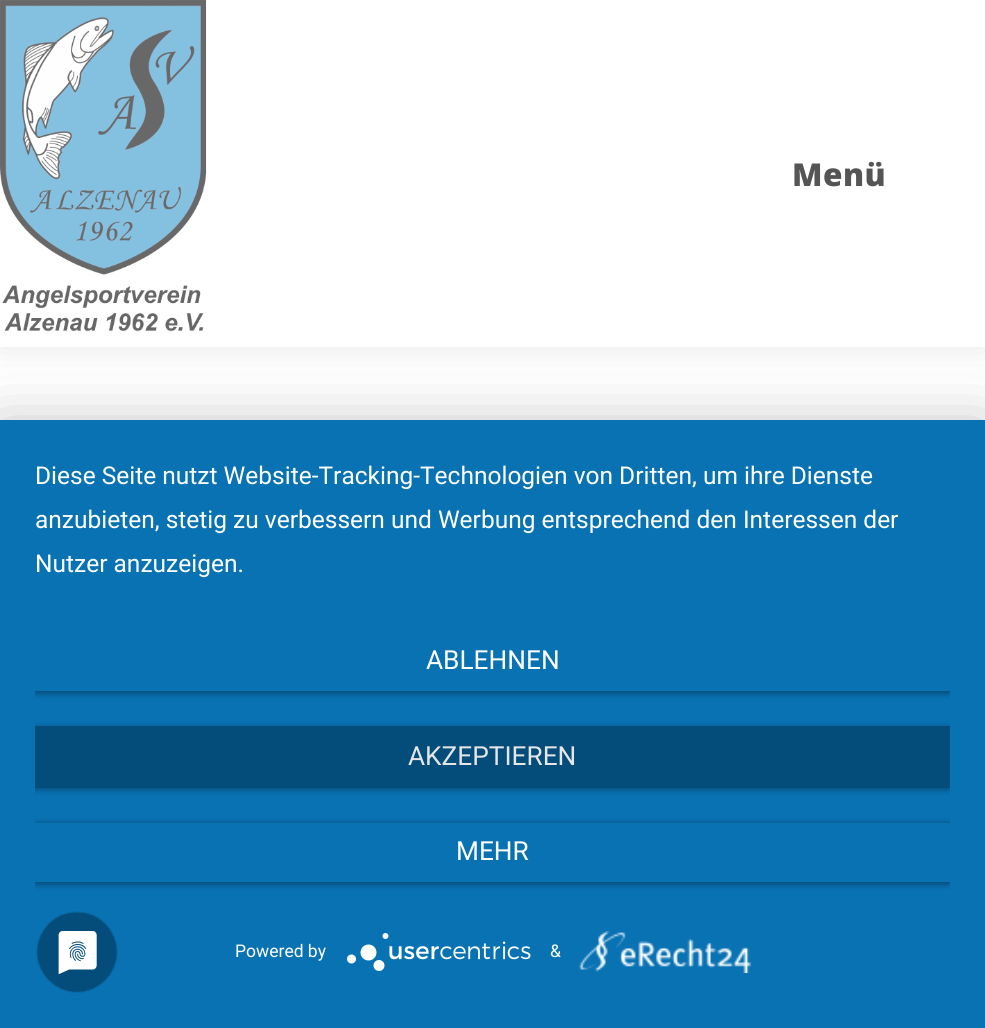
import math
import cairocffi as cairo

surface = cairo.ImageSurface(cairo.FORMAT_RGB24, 985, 1028)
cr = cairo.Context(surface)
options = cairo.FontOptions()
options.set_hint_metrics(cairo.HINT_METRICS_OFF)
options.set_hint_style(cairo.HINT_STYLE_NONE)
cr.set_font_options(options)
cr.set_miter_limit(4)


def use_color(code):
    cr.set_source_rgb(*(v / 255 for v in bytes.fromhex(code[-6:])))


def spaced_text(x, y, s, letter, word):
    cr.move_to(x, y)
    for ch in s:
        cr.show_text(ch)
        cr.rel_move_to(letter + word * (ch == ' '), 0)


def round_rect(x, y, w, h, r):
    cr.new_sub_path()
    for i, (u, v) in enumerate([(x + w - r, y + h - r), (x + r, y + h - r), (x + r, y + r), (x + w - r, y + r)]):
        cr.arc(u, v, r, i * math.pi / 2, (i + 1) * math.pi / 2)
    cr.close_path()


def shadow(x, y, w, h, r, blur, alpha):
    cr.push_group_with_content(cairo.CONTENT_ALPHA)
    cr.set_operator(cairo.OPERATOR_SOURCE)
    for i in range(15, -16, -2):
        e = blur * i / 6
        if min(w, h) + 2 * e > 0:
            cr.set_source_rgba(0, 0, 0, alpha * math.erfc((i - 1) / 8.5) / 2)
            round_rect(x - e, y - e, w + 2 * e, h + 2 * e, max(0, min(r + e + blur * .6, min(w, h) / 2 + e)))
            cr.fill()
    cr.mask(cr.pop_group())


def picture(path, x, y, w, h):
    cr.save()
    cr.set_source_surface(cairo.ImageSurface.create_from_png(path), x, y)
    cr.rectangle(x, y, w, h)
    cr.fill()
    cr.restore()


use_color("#ffffff")
cr.paint()
use_color("#000000")
shadow(0, 0, 985, 347, 0, 17.5, 0.1)
use_color("#ffffff")
cr.rectangle(0, 0, 985, 347)
cr.fill()
picture("img1.png", 0, 0, 207, 332)
cr.select_font_face("Open Sans ExtraBold")
cr.set_font_size(31.5)
use_color("#555555")
spaced_text(792, 186, "Menü", 0.5, 0)
use_color("#000000")
shadow(0, 431, 985, 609, 0, 31.5, 0.3)
use_color("#0972b3")
cr.rectangle(0, 420, 985, 608)
cr.fill()
cr.select_font_face("Roboto")
cr.set_font_size(24.5)
use_color("#ffffff")
cr.move_to(35, 484)
cr.show_text("Diese Seite nutzt Website-Tracking-Technologien von Dritten, um ihre Dienste")
cr.move_to(35, 528)
cr.show_text("anzubieten, stetig zu verbessern und Werbung entsprechend den Interessen der")
cr.move_to(35, 572)
cr.show_text("Nutzer anzuzeigen.")
cr.save()
cr.rectangle(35, 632, 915, 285)
cr.clip()
cr.rectangle(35, 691, 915, 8)
cr.clip()
use_color("#000000")
shadow(35, 634, 915, 59, 0, 3.5, 0.4)
cr.restore()
cr.set_font_size(26.25)
cr.move_to(426, 669)
cr.show_text("ABLEHNEN")
cr.save()
cr.rectangle(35, 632, 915, 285)
cr.clip()
use_color("#000000")
shadow(35, 728, 915, 61, 0, 3.5, 0.4)
cr.restore()
use_color("#044d7a")
cr.rectangle(35, 726, 915, 62)
cr.fill()
use_color("#e6e6e6")
cr.move_to(408, 765)
cr.show_text("AKZEPTIEREN")
cr.save()
cr.rectangle(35, 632, 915, 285)
cr.clip()
cr.set_fill_rule(cairo.FILL_RULE_EVEN_ODD)
cr.new_path()
cr.move_to(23, 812)
cr.line_to(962, 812)
cr.line_to(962, 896)
cr.line_to(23, 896)
cr.close_path()
cr.move_to(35, 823)
cr.line_to(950, 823)
cr.line_to(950, 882)
cr.line_to(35, 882)
cr.close_path()
cr.clip()
use_color("#000000")
shadow(35, 824, 915, 60, 0, 3.5, 0.4)
cr.restore()
use_color("#ffffff")
cr.move_to(456, 860)
cr.show_text("MEHR")
cr.set_font_size(17.5)
cr.move_to(235, 957)
cr.show_text("Powered by")
picture("img2.png", 347, 933, 184, 38)
cr.move_to(550, 957)
cr.show_text("&")
picture("img3.png", 579, 931, 172, 42)
picture("img4.png", 36, 911, 82, 82)
surface.write_to_png("result.png")
